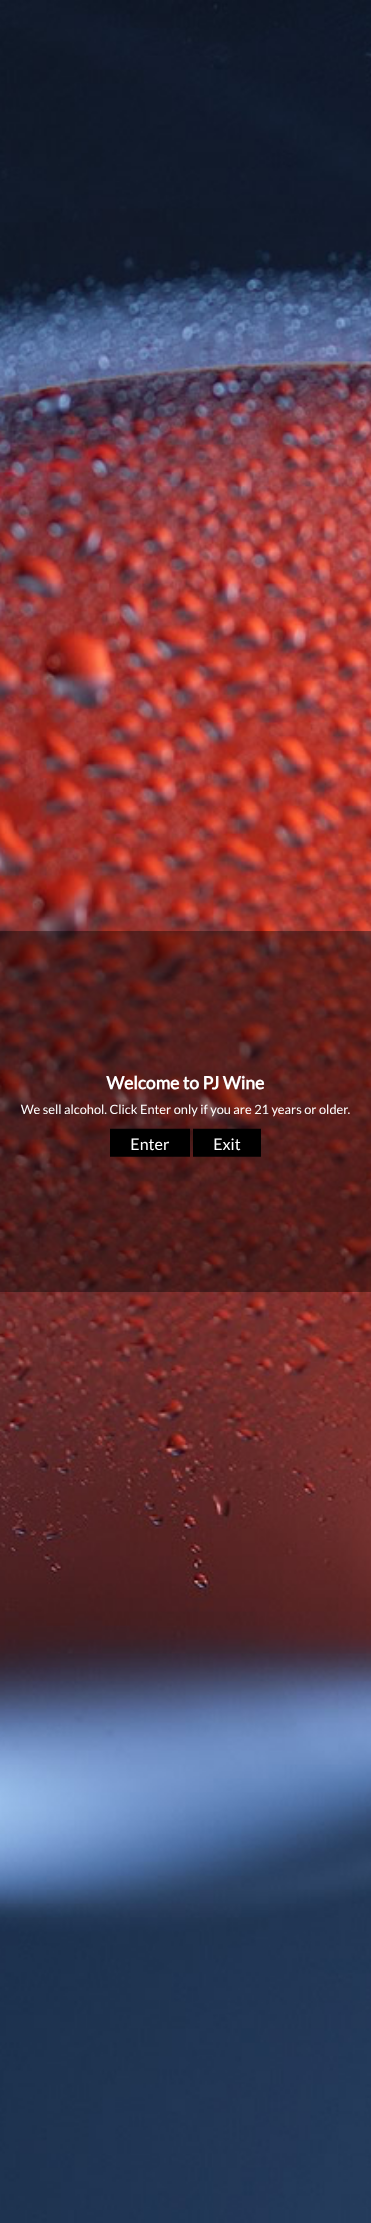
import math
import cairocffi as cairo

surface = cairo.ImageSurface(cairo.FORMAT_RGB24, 371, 2223)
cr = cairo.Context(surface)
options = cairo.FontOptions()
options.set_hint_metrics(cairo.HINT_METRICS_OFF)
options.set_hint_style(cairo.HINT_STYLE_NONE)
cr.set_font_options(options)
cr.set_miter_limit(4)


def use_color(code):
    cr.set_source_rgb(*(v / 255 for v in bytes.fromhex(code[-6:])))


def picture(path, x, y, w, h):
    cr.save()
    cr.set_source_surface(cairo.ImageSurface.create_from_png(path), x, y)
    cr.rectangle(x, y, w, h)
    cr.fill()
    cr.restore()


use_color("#ffffff")
cr.paint()
picture("img1.png", 0, 0, 371, 2223)
picture("img2.png", 0, 931, 371, 361)
surface.write_to_png("result.png")
